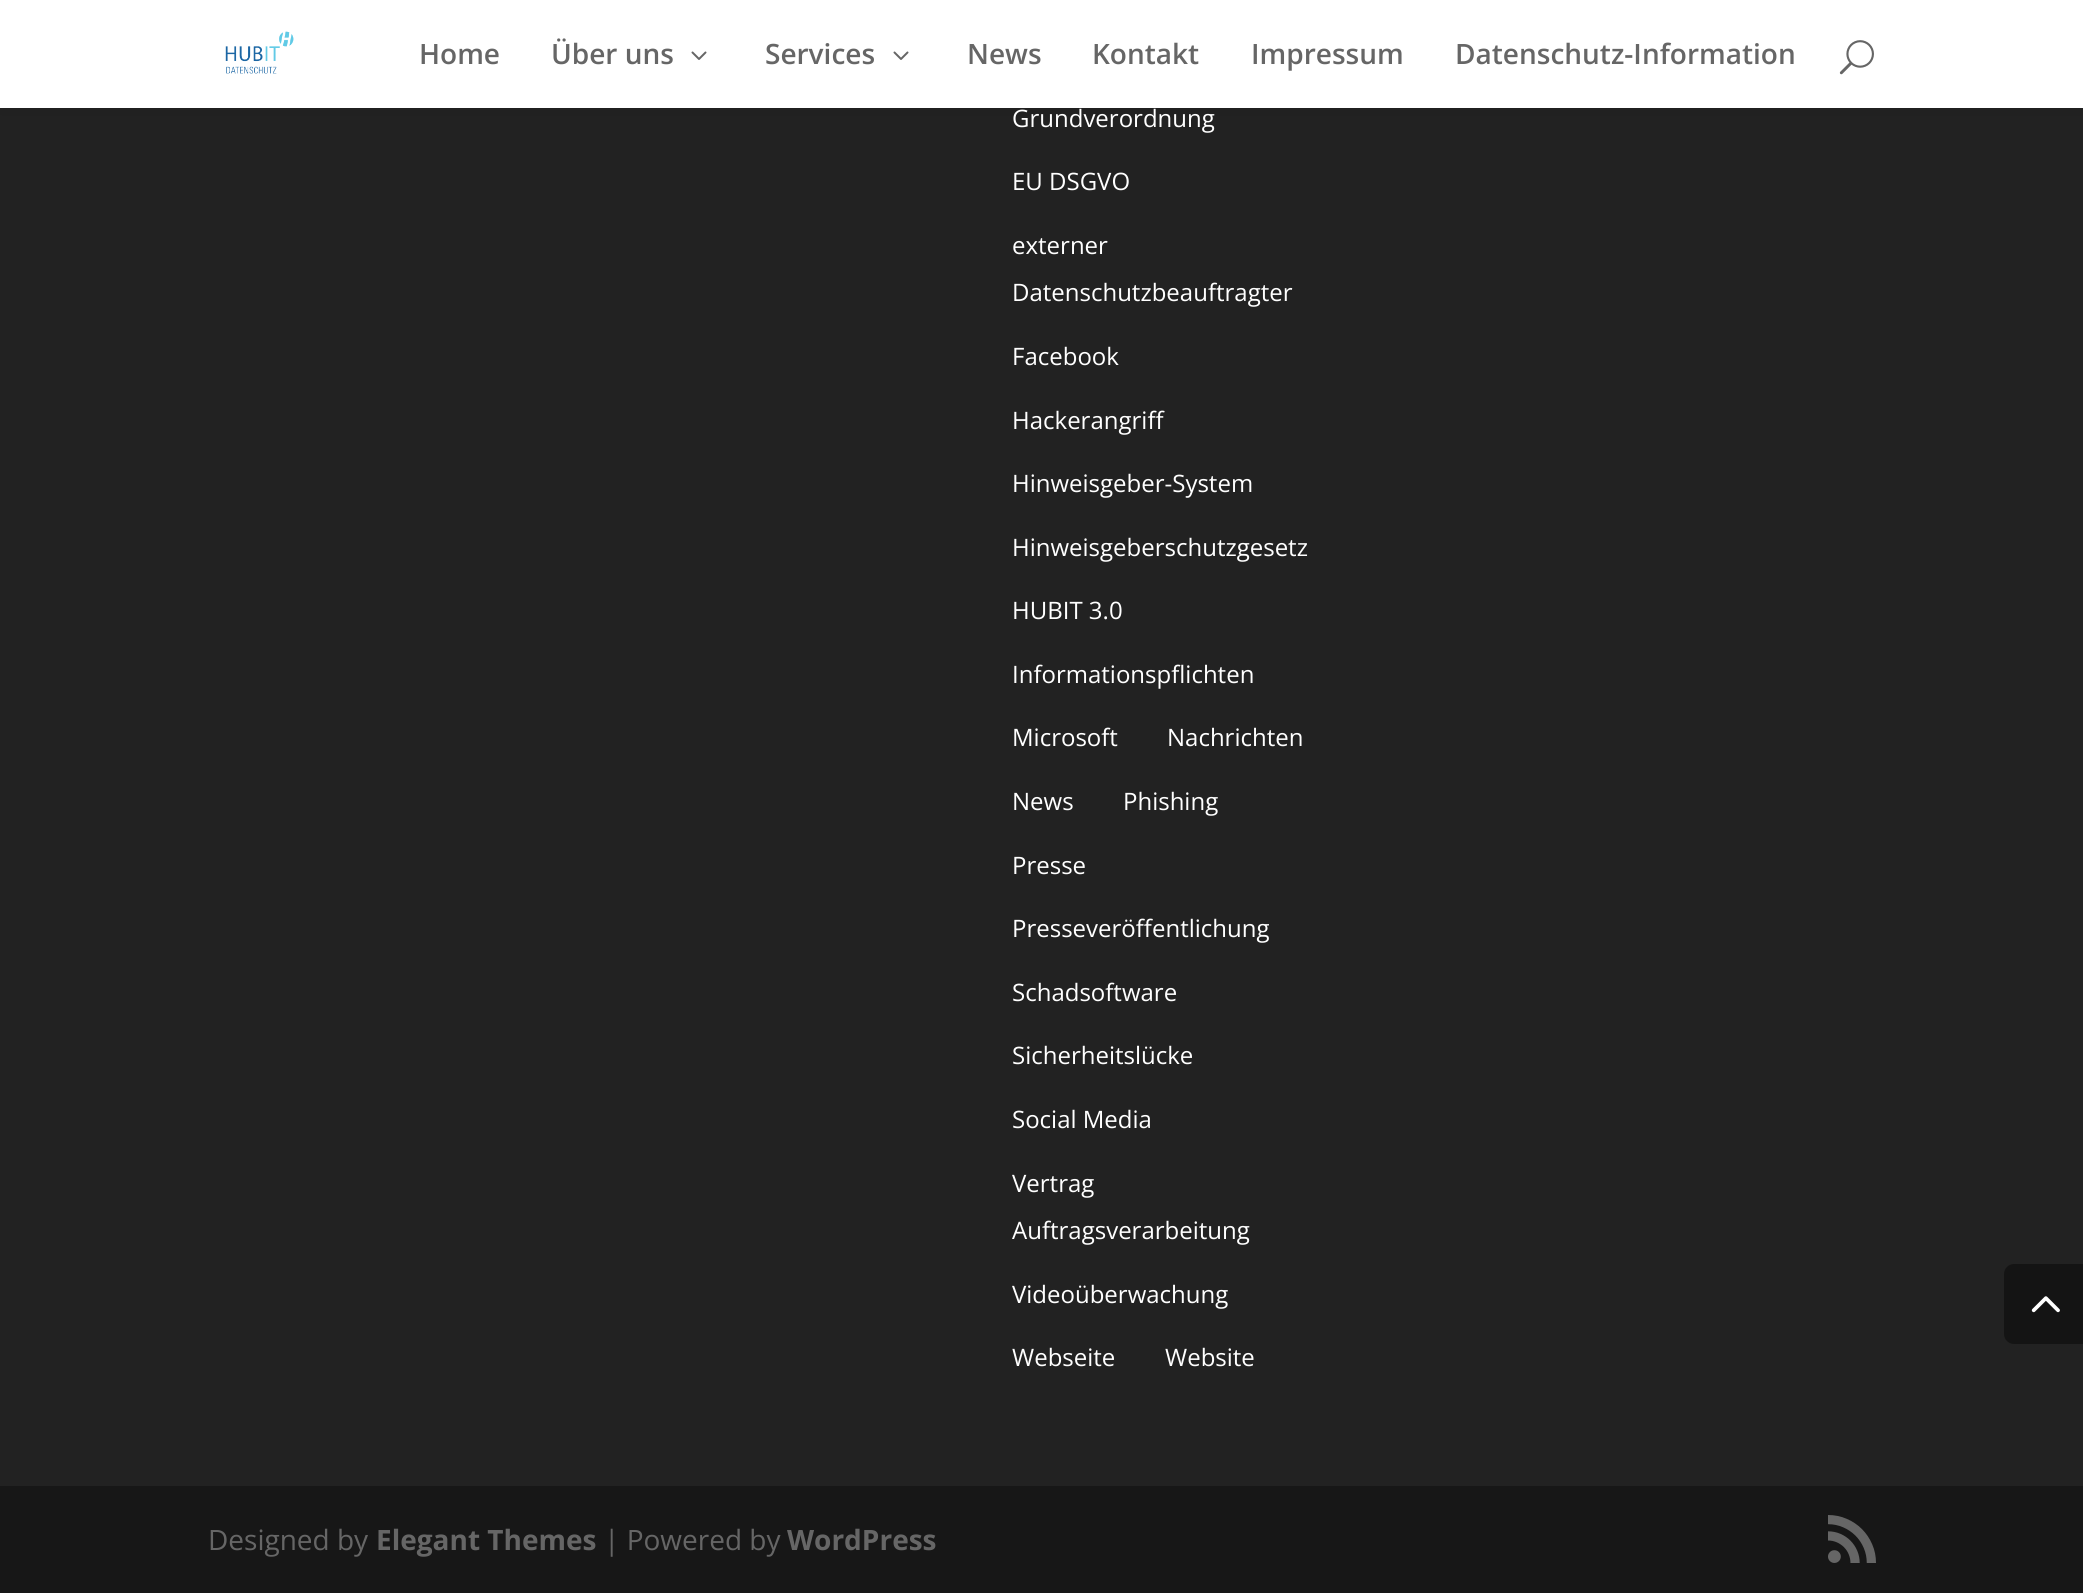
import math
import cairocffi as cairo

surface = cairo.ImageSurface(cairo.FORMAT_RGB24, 2083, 1593)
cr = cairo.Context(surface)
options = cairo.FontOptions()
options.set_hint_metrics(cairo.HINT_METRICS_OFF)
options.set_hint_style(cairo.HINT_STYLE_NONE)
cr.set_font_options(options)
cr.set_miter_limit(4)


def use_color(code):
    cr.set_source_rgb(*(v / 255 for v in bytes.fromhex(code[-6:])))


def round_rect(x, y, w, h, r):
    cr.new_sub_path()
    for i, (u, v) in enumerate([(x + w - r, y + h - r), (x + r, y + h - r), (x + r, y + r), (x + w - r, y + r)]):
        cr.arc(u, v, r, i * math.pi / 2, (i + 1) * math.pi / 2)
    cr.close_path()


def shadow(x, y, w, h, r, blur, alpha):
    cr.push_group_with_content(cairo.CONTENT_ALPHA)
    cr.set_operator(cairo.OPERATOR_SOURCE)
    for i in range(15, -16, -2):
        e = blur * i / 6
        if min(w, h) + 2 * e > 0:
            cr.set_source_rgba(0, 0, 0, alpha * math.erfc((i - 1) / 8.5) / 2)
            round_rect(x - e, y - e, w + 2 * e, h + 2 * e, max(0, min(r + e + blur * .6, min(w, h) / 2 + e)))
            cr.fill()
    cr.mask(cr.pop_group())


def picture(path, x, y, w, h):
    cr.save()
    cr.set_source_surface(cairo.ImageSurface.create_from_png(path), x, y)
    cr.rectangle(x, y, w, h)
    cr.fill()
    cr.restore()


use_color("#222222")
cr.paint()
use_color("#000000")
shadow(0, 0, 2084, 108, 0, 7, 0.1)
use_color("#ffffff")
cr.rectangle(0, 0, 2083, 108)
cr.fill()
picture("img1.png", 225, 31, 69, 43)
cr.select_font_face("Open Sans SemiBold")
cr.set_font_size(28)
use_color("#666666")
cr.move_to(419, 64)
cr.show_text("Home")
cr.move_to(551, 64)
cr.show_text("Über uns")
picture("img2.png", 691, 51, 16, 9)
cr.move_to(765, 64)
cr.show_text("Services")
picture("img2.png", 893, 51, 16, 9)
cr.move_to(967, 64)
cr.show_text("News")
cr.move_to(1092, 64)
cr.show_text("Kontakt")
cr.move_to(1251, 64)
cr.show_text("Impressum")
cr.move_to(1455, 64)
cr.show_text("Datenschutz-Information")
picture("img3.png", 1839, 40, 35, 35)
cr.select_font_face("Open Sans")
cr.set_font_size(24)
use_color("#ffffff")
cr.move_to(1012, 127)
cr.show_text("Grundverordnung")
cr.move_to(1012, 190)
cr.show_text("EU DSGVO")
cr.move_to(1012, 254)
cr.show_text("externer")
cr.move_to(1012, 301)
cr.show_text("Datenschutzbeauftragter")
cr.move_to(1012, 365)
cr.show_text("Facebook")
cr.move_to(1012, 429)
cr.show_text("Hackerangriff")
cr.move_to(1012, 492)
cr.show_text("Hinweisgeber-System")
cr.move_to(1012, 556)
cr.show_text("Hinweisgeberschutzgesetz")
cr.move_to(1012, 619)
cr.show_text("HUBIT 3.0")
cr.move_to(1012, 683)
cr.show_text("Informationspflichten")
cr.move_to(1012, 746)
cr.show_text("Microsoft")
cr.move_to(1167, 746)
cr.show_text("Nachrichten")
cr.move_to(1012, 810)
cr.show_text("News")
cr.move_to(1123, 810)
cr.show_text("Phishing")
cr.move_to(1012, 874)
cr.show_text("Presse")
cr.move_to(1012, 937)
cr.show_text("Presseveröffentlichung")
cr.move_to(1012, 1001)
cr.show_text("Schadsoftware")
cr.move_to(1012, 1064)
cr.show_text("Sicherheitslücke")
cr.move_to(1012, 1128)
cr.show_text("Social Media")
cr.move_to(1012, 1192)
cr.show_text("Vertrag")
cr.move_to(1012, 1239)
cr.show_text("Auftragsverarbeitung")
cr.move_to(1012, 1303)
cr.show_text("Videoüberwachung")
cr.move_to(1012, 1366)
cr.show_text("Webseite")
cr.move_to(1165, 1366)
cr.show_text("Website")
use_color("#171717")
cr.rectangle(0, 1486, 2083, 107)
cr.fill()
cr.set_font_size(28)
use_color("#666666")
cr.move_to(208, 1550)
cr.show_text("Designed by")
cr.select_font_face("Open Sans", cairo.FONT_SLANT_NORMAL, cairo.FONT_WEIGHT_BOLD)
cr.move_to(376, 1550)
cr.show_text("Elegant Themes")
cr.select_font_face("Open Sans")
cr.move_to(604, 1550)
cr.show_text("| Powered by")
cr.select_font_face("Open Sans", cairo.FONT_SLANT_NORMAL, cairo.FONT_WEIGHT_BOLD)
cr.move_to(787, 1550)
cr.show_text("WordPress")
picture("img4.png", 1828, 1515, 48, 48)
use_color("#141414")
cr.new_path()
cr.move_to(2014, 1264)
cr.line_to(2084, 1264)
cr.line_to(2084, 1344)
cr.line_to(2014, 1344)
cr.curve_to(2008.5, 1344, 2004, 1339.5, 2004, 1334)
cr.line_to(2004, 1274)
cr.curve_to(2004, 1268.5, 2008.5, 1264, 2014, 1264)
cr.close_path()
cr.fill()
picture("img5.png", 2031, 1296, 29, 17)
surface.write_to_png("result.png")
